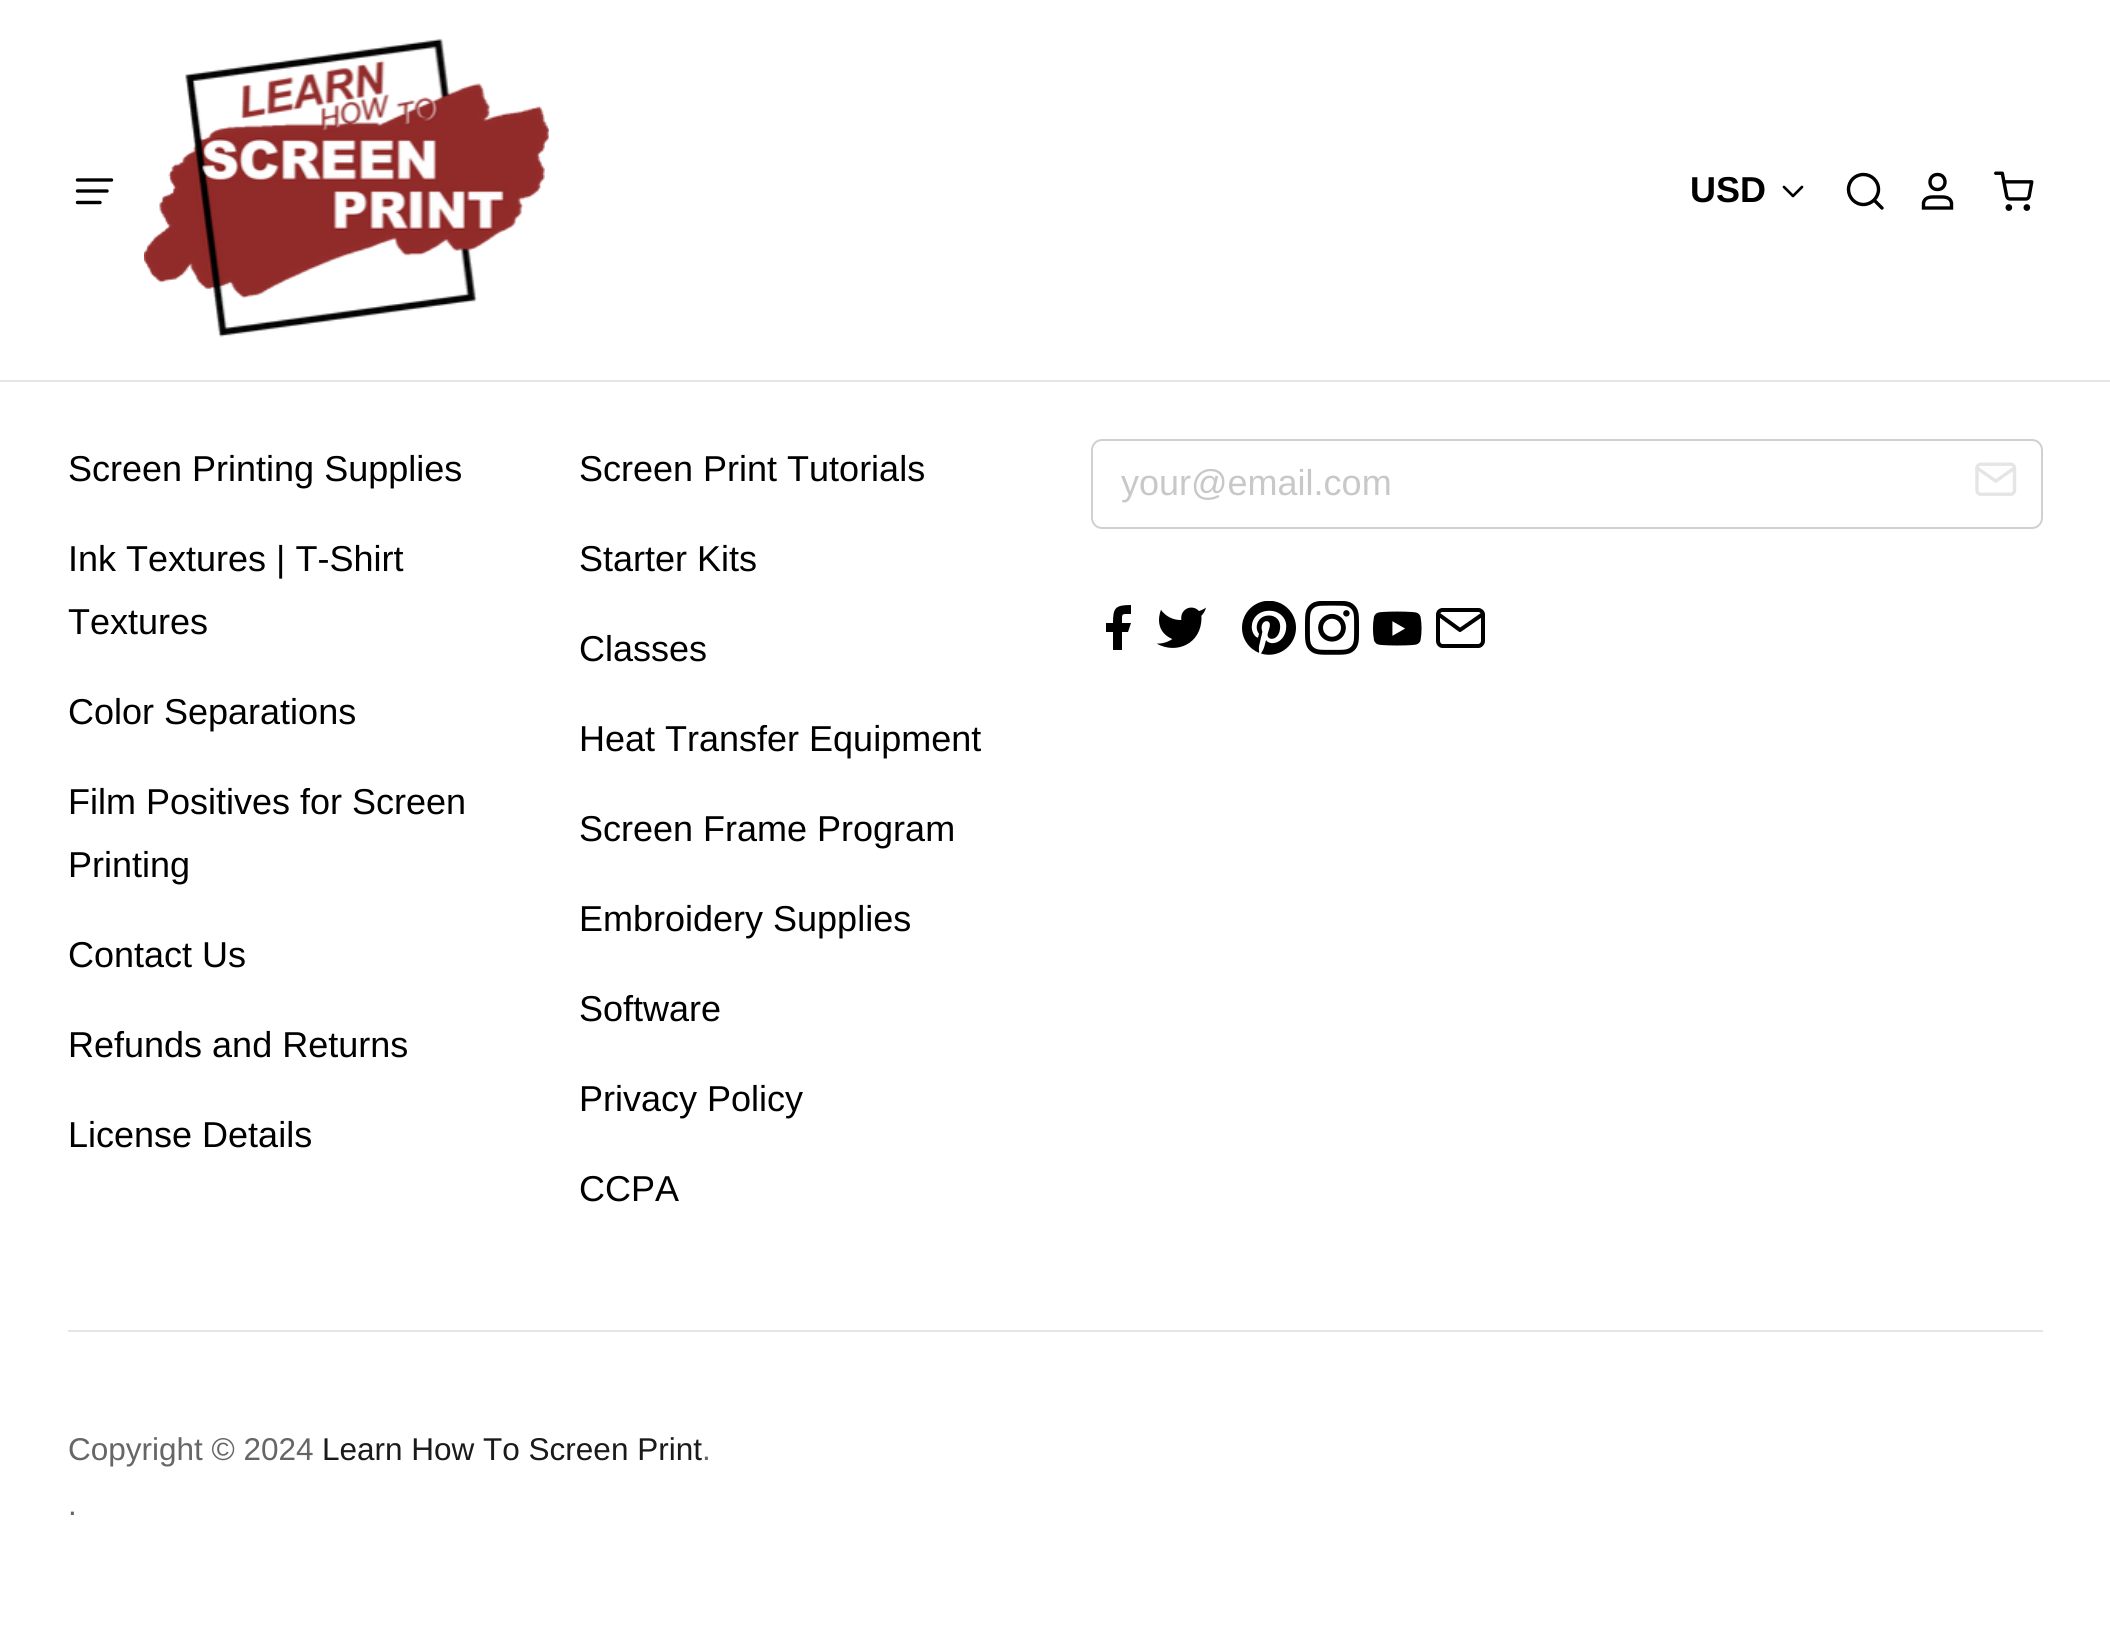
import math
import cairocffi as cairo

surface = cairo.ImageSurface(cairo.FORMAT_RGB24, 2110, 1639)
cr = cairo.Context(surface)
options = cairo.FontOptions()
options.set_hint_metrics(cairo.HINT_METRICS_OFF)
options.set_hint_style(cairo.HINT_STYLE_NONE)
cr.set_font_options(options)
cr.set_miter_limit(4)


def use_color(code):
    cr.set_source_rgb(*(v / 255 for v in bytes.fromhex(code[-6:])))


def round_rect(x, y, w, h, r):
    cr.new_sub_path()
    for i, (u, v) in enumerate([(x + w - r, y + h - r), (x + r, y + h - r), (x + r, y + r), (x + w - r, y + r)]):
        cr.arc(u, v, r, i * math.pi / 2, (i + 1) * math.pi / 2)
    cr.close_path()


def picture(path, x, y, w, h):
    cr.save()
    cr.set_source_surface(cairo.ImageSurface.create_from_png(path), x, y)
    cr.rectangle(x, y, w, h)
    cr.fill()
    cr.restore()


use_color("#ffffff")
cr.paint()
use_color("#e5e5e5")
cr.rectangle(0, 380, 2110, 2)
cr.fill()
cr.new_path()
cr.move_to(77.5, 180)
cr.line_to(111.5, 180)
cr.move_to(77.5, 191)
cr.line_to(107, 191)
cr.move_to(77.5, 202.5)
cr.line_to(100, 202.5)
use_color("#000000")
cr.set_line_width(3.4)
cr.set_line_cap(cairo.LINE_CAP_ROUND)
cr.set_line_join(cairo.LINE_JOIN_ROUND)
cr.stroke()
picture("img1.png", 144, 38, 405, 299)
cr.select_font_face("Liberation Sans", cairo.FONT_SLANT_NORMAL, cairo.FONT_WEIGHT_BOLD)
cr.set_font_size(36)
cr.move_to(1690, 202)
cr.show_text("USD")
cr.new_path()
cr.move_to(1784, 187)
cr.line_to(1793, 196)
cr.line_to(1802, 187)
cr.set_line_width(2.7)
cr.stroke()
cr.new_path()
cr.move_to(1863.5, 174.5)
cr.curve_to(1855, 174.5, 1848.5, 181, 1848.5, 189.5)
cr.curve_to(1848.5, 197.5, 1855, 204.5, 1863.5, 204.5)
cr.curve_to(1871.5, 204.5, 1878.5, 197.5, 1878.5, 189.5)
cr.curve_to(1878.5, 181, 1871.5, 174.5, 1863.5, 174.5)
cr.close_path()
cr.move_to(1882, 208)
cr.line_to(1874, 200)
cr.close_path()
cr.set_line_width(3.4)
cr.stroke()
cr.new_path()
cr.move_to(1951.5, 208)
cr.line_to(1951.5, 203)
cr.curve_to(1950, 196, 1943, 197, 1937.5, 197)
cr.curve_to(1932, 197, 1925, 196, 1923.5, 203)
cr.line_to(1923.5, 208)
cr.close_path()
cr.move_to(1937.5, 174.5)
cr.curve_to(1927.5, 174.5, 1927.5, 189.5, 1937.5, 189.5)
cr.curve_to(1947.5, 189.5, 1947.5, 174.5, 1937.5, 174.5)
cr.close_path()
cr.set_line_cap(cairo.LINE_CAP_BUTT)
cr.set_line_join(cairo.LINE_JOIN_MITER)
cr.stroke()
picture("img2.png", 1994, 171, 40, 40)
cr.select_font_face("Liberation Sans")
cr.move_to(68, 481)
cr.show_text("Screen Printing Supplies")
cr.move_to(68, 571)
cr.show_text("Ink Textures | T-Shirt")
cr.move_to(68, 634)
cr.show_text("Textures")
cr.move_to(68, 724)
cr.show_text("Color Separations")
cr.move_to(68, 814)
cr.show_text("Film Positives for Screen")
cr.move_to(68, 877)
cr.show_text("Printing")
cr.move_to(68, 967)
cr.show_text("Contact Us")
cr.move_to(68, 1057)
cr.show_text("Refunds and Returns")
cr.move_to(68, 1147)
cr.show_text("License Details")
cr.move_to(579, 481)
cr.show_text("Screen Print Tutorials")
cr.move_to(579, 571)
cr.show_text("Starter Kits")
cr.move_to(579, 661)
cr.show_text("Classes")
cr.move_to(579, 751)
cr.show_text("Heat Transfer Equipment")
cr.move_to(579, 841)
cr.show_text("Screen Frame Program")
cr.move_to(579, 931)
cr.show_text("Embroidery Supplies")
cr.move_to(579, 1021)
cr.show_text("Software")
cr.move_to(579, 1111)
cr.show_text("Privacy Policy")
cr.move_to(579, 1201)
cr.show_text("CCPA")
round_rect(1092, 440, 950, 88, 10)
use_color("#d0d0d0")
cr.set_line_width(2)
cr.stroke()
use_color("#c8c8c8")
cr.move_to(1121, 495)
cr.show_text("your@email.com")
picture("img3.png", 1975, 462, 42, 34)
use_color("#000000")
cr.set_fill_rule(cairo.FILL_RULE_EVEN_ODD)
cr.new_path()
cr.move_to(1131, 605)
cr.curve_to(1115, 605, 1113, 608, 1113, 623)
cr.line_to(1106, 623)
cr.line_to(1106, 632)
cr.line_to(1113, 632)
cr.line_to(1113, 650)
cr.line_to(1122, 650)
cr.line_to(1122, 632)
cr.line_to(1128, 632)
cr.line_to(1131, 623)
cr.line_to(1122, 623)
cr.curve_to(1122, 613, 1121, 614, 1131, 614)
cr.close_path()
cr.fill()
picture("img4.png", 1156, 607, 50, 41)
picture("img5.png", 1242, 601, 54, 54)
picture("img6.png", 1305, 601, 54, 54)
picture("img7.png", 1372, 611, 50, 35)
cr.new_path()
cr.move_to(1442.5, 610)
cr.line_to(1478.5, 610)
cr.curve_to(1480.5, 610, 1483, 612, 1483, 614.5)
cr.line_to(1483, 641)
cr.curve_to(1483, 643.5, 1480.5, 646, 1478.5, 646)
cr.line_to(1442.5, 646)
cr.curve_to(1440, 646, 1438, 643.5, 1438, 641)
cr.line_to(1438, 614.5)
cr.curve_to(1438, 612, 1440, 610, 1442.5, 610)
cr.close_path()
cr.move_to(1483, 614)
cr.line_to(1460, 630)
cr.line_to(1438, 614)
cr.set_line_width(4)
cr.set_line_cap(cairo.LINE_CAP_ROUND)
cr.set_line_join(cairo.LINE_JOIN_ROUND)
cr.stroke()
use_color("#e5e5e5")
cr.rectangle(68, 1330, 1975, 2)
cr.fill()
cr.set_font_size(31.5)
use_color("#666666")
cr.move_to(68, 1460)
cr.show_text("Copyright © 2024")
use_color("#1a1a1a")
cr.move_to(322, 1460)
cr.show_text("Learn How To Screen Print")
use_color("#666666")
cr.move_to(702, 1460)
cr.show_text(".")
cr.move_to(68, 1515)
cr.show_text(".")
surface.write_to_png("result.png")
